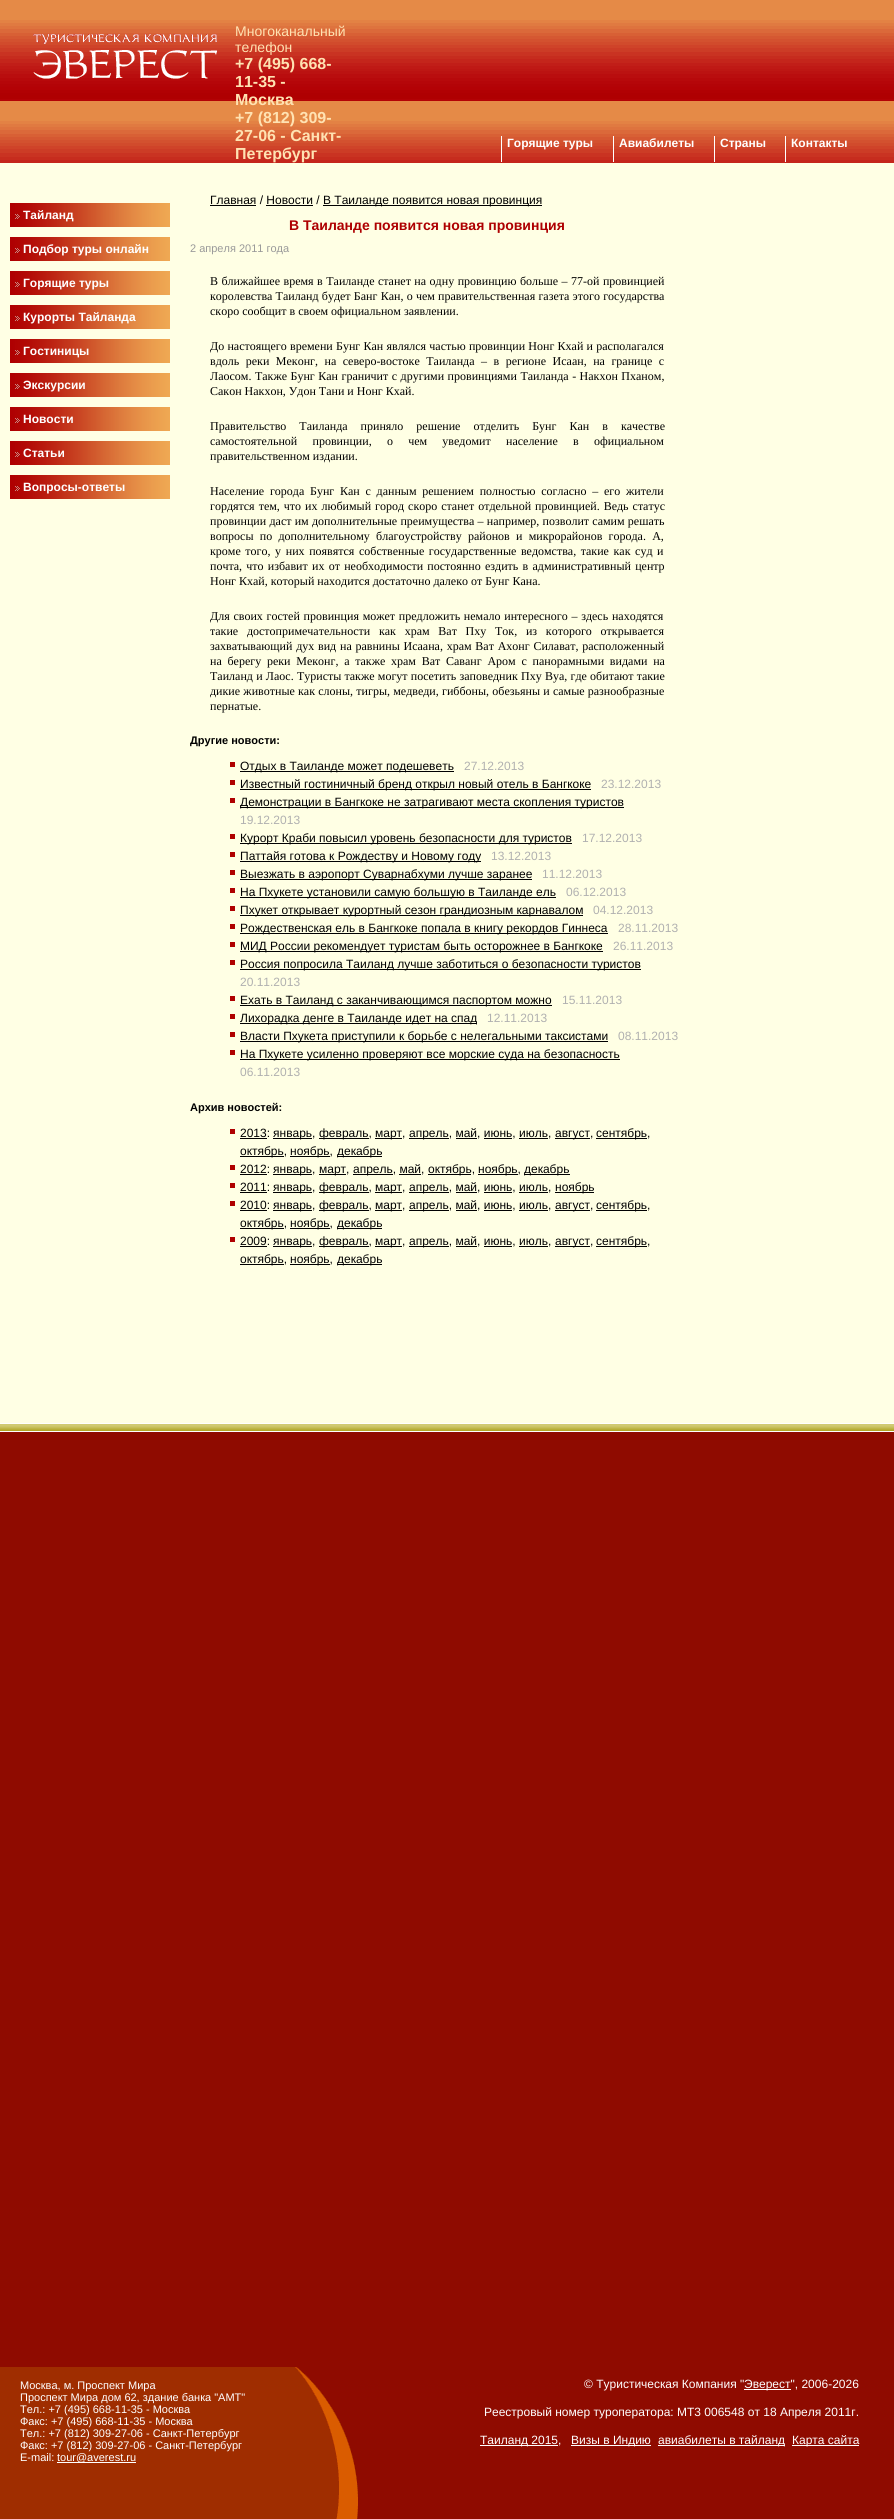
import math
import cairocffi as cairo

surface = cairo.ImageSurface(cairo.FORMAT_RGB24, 894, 2519)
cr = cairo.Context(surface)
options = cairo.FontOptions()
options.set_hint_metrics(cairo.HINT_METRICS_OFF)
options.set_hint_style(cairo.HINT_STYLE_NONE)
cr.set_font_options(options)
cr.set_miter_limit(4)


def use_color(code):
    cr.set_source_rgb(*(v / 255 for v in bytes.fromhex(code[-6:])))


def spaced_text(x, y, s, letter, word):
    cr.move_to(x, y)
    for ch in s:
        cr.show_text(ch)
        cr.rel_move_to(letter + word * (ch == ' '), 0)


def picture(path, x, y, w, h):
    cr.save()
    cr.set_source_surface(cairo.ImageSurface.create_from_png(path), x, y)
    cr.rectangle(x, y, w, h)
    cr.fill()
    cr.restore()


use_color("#ffffe4")
cr.paint()
picture("img1.png", 0, 0, 894, 163)
picture("img2.png", 33, 34, 185, 45)
cr.select_font_face("Liberation Sans")
cr.set_font_size(14)
use_color("#ffe2b2")
cr.move_to(235, 36)
cr.show_text("Многоканальный")
cr.move_to(235, 52)
cr.show_text("телефон")
cr.select_font_face("Liberation Sans", cairo.FONT_SLANT_NORMAL, cairo.FONT_WEIGHT_BOLD)
cr.set_font_size(16)
cr.move_to(235, 69)
cr.show_text("+7 (495) 668-")
cr.move_to(235, 87)
cr.show_text("11-35 -")
cr.move_to(235, 105)
cr.show_text("Москва")
cr.move_to(235, 123)
cr.show_text("+7 (812) 309-")
cr.move_to(235, 141)
cr.show_text("27-06 - Санкт-")
cr.move_to(235, 159)
cr.show_text("Петербург")
cr.set_font_size(12)
use_color("#ffffff")
cr.move_to(507, 147)
cr.show_text("Горящие туры")
cr.rectangle(501, 136, 1, 26)
cr.fill()
cr.move_to(619, 147)
cr.show_text("Авиабилеты")
cr.rectangle(613, 136, 1, 26)
cr.fill()
cr.move_to(720, 147)
cr.show_text("Страны")
cr.rectangle(714, 136, 1, 26)
cr.fill()
cr.move_to(791, 147)
cr.show_text("Контакты")
cr.rectangle(785, 136, 1, 26)
cr.fill()
picture("img3.png", 10, 203, 160, 24)
picture("img4.png", 15, 214, 5, 5)
cr.move_to(23, 219)
cr.show_text("Тайланд")
picture("img3.png", 10, 237, 160, 24)
picture("img4.png", 15, 248, 5, 5)
cr.move_to(23, 253)
cr.show_text("Подбор туры онлайн")
picture("img3.png", 10, 271, 160, 24)
picture("img4.png", 15, 282, 5, 5)
cr.move_to(23, 287)
cr.show_text("Горящие туры")
picture("img3.png", 10, 305, 160, 24)
picture("img4.png", 15, 316, 5, 5)
cr.move_to(23, 321)
cr.show_text("Курорты Тайланда")
picture("img3.png", 10, 339, 160, 24)
picture("img4.png", 15, 350, 5, 5)
cr.move_to(23, 355)
cr.show_text("Гостиницы")
picture("img3.png", 10, 373, 160, 24)
picture("img4.png", 15, 384, 5, 5)
cr.move_to(23, 389)
cr.show_text("Экскурсии")
picture("img3.png", 10, 407, 160, 24)
picture("img4.png", 15, 418, 5, 5)
cr.move_to(23, 423)
cr.show_text("Новости")
picture("img3.png", 10, 441, 160, 24)
picture("img4.png", 15, 452, 5, 5)
cr.move_to(23, 457)
cr.show_text("Статьи")
picture("img3.png", 10, 475, 160, 24)
picture("img4.png", 15, 486, 5, 5)
cr.move_to(23, 491)
cr.show_text("Вопросы-ответы")
cr.select_font_face("Liberation Sans")
use_color("#000000")
cr.move_to(210, 204)
cr.show_text("Главная / Новости /")
cr.rectangle(210, 205, 46, 1)
cr.fill()
cr.rectangle(323, 205, 219, 1)
cr.fill()
cr.move_to(323, 204)
cr.show_text("В Таиланде появится новая провинция")
cr.rectangle(266, 205, 47, 1)
cr.fill()
cr.select_font_face("Liberation Sans", cairo.FONT_SLANT_NORMAL, cairo.FONT_WEIGHT_BOLD)
cr.set_font_size(14)
use_color("#ae0001")
cr.move_to(289, 230)
cr.show_text("В Таиланде появится новая провинция")
cr.select_font_face("Liberation Sans")
cr.set_font_size(11)
use_color("#999999")
cr.move_to(190, 252)
cr.show_text("2 апреля 2011 года")
cr.select_font_face("Liberation Serif")
cr.set_font_size(12)
use_color("#000000")
spaced_text(210, 285, "В ближайшее время в Таиланде станет на одну провинцию больше – 77-ой провинцией", 0, 0.5)
spaced_text(210, 300, "королевства Таиланд будет Банг Кан, о чем правительственная газета этого государства", 0, 0.25)
cr.move_to(210, 315)
cr.show_text("скоро сообщит в своем официальном заявлении.")
spaced_text(210, 350, "До настоящего времени Бунг Кан являлся частью провинции Нонг Кхай и располагался", 0, 0.25)
spaced_text(210, 365, "вдоль реки Меконг, на северо-востоке Таиланда – в регионе Исаан, на границе с", 0, 3.5)
spaced_text(210, 380, "Лаосом. Также Бунг Кан граничит с другими провинциями Таиланда - Накхон Пханом,", 0, 0.5)
cr.move_to(210, 395)
cr.show_text("Сакон Накхон, Удон Тани и Нонг Кхай.")
spaced_text(210, 430, "Правительство Таиланда приняло решение отделить Бунг Кан в качестве", 0, 10)
spaced_text(210, 445, "самостоятельной провинции, о чем уведомит население в официальном", 0, 12.25)
cr.move_to(210, 460)
cr.show_text("правительственном издании.")
spaced_text(210, 495, "Население города Бунг Кан с данным решением полностью согласно – его жители", 0, 2.75)
spaced_text(210, 510, "гордятся тем, что их любимый город скоро станет отдельной провинцией. Ведь статус", 0, 1)
spaced_text(210, 525, "провинции даст им дополнительные преимущества – например, позволит самим решать", 0, 0.25)
spaced_text(210, 540, "вопросы по дополнительному благоустройству районов и микрорайонов города. А,", 0, 3.25)
spaced_text(210, 555, "кроме того, у них появятся собственные государственные ведомства, такие как суд и", 0, 1.6)
spaced_text(210, 570, "почта, что избавит их от необходимости постоянно ездить в административный центр", 0, 1.25)
cr.move_to(210, 585)
cr.show_text("Нонг Кхай, который находится достаточно далеко от Бунг Кана.")
spaced_text(210, 620, "Для своих гостей провинция может предложить немало интересного – здесь находятся", 0, 0.75)
spaced_text(210, 635, "такие достопримечательности как храм Ват Пху Ток, из которого открывается", 0, 5.75)
spaced_text(210, 650, "захватывающий дух вид на равнины Исаана, храм Ват Ахонг Силават, расположенный", 0, 0.75)
spaced_text(210, 665, "на берегу реки Меконг, а также храм Ват Саванг Аром с панорамными видами на", 0, 2.75)
spaced_text(210, 680, "Таиланд и Лаос. Туристы также могут посетить заповедник Пху Вуа, где обитают такие", 0, 0.25)
spaced_text(210, 695, "дикие животные как слоны, тигры, медведи, гиббоны, обезьяны и самые разнообразные", 0, 0.25)
cr.move_to(210, 710)
cr.show_text("пернатые.")
cr.select_font_face("Liberation Sans", cairo.FONT_SLANT_NORMAL, cairo.FONT_WEIGHT_BOLD)
cr.set_font_size(11)
cr.move_to(190, 744)
cr.show_text("Другие новости:")
use_color("#af0000")
cr.rectangle(230, 762, 5, 5)
cr.fill()
use_color("#000000")
cr.rectangle(240, 771, 214, 1)
cr.fill()
cr.select_font_face("Liberation Sans")
cr.set_font_size(12)
cr.move_to(240, 770)
cr.show_text("Отдых в Таиланде может подешеветь")
use_color("#b0b0b0")
cr.move_to(464, 770)
cr.show_text("27.12.2013")
use_color("#af0000")
cr.rectangle(230, 780, 5, 5)
cr.fill()
use_color("#000000")
cr.rectangle(240, 789, 351, 1)
cr.fill()
cr.move_to(240, 788)
cr.show_text("Известный гостиничный бренд открыл новый отель в Бангкоке")
use_color("#b0b0b0")
cr.move_to(601, 788)
cr.show_text("23.12.2013")
use_color("#af0000")
cr.rectangle(230, 798, 5, 5)
cr.fill()
use_color("#000000")
cr.rectangle(240, 807, 384, 1)
cr.fill()
cr.move_to(240, 806)
cr.show_text("Демонстрации в Бангкоке не затрагивают места скопления туристов")
use_color("#b0b0b0")
cr.move_to(240, 824)
cr.show_text("19.12.2013")
use_color("#af0000")
cr.rectangle(230, 834, 5, 5)
cr.fill()
use_color("#000000")
cr.rectangle(240, 843, 332, 1)
cr.fill()
cr.move_to(240, 842)
cr.show_text("Курорт Краби повысил уровень безопасности для туристов")
use_color("#b0b0b0")
cr.move_to(582, 842)
cr.show_text("17.12.2013")
use_color("#af0000")
cr.rectangle(230, 852, 5, 5)
cr.fill()
use_color("#000000")
cr.rectangle(240, 861, 241, 1)
cr.fill()
cr.move_to(240, 860)
cr.show_text("Паттайя готова к Рождеству и Новому году")
use_color("#b0b0b0")
cr.move_to(491, 860)
cr.show_text("13.12.2013")
use_color("#af0000")
cr.rectangle(230, 870, 5, 5)
cr.fill()
use_color("#000000")
cr.rectangle(240, 879, 292, 1)
cr.fill()
cr.move_to(240, 878)
cr.show_text("Выезжать в аэропорт Суварнабхуми лучше заранее")
use_color("#b0b0b0")
cr.move_to(542, 878)
cr.show_text("11.12.2013")
use_color("#af0000")
cr.rectangle(230, 888, 5, 5)
cr.fill()
use_color("#000000")
cr.rectangle(240, 897, 316, 1)
cr.fill()
cr.move_to(240, 896)
cr.show_text("На Пхукете установили самую большую в Таиланде ель")
use_color("#b0b0b0")
cr.move_to(566, 896)
cr.show_text("06.12.2013")
use_color("#af0000")
cr.rectangle(230, 906, 5, 5)
cr.fill()
use_color("#000000")
cr.rectangle(240, 915, 343, 1)
cr.fill()
cr.move_to(240, 914)
cr.show_text("Пхукет открывает курортный сезон грандиозным карнавалом")
use_color("#b0b0b0")
cr.move_to(593, 914)
cr.show_text("04.12.2013")
use_color("#af0000")
cr.rectangle(230, 924, 5, 5)
cr.fill()
use_color("#000000")
cr.rectangle(240, 933, 368, 1)
cr.fill()
cr.move_to(240, 932)
cr.show_text("Рождественская ель в Бангкоке попала в книгу рекордов Гиннеса")
use_color("#b0b0b0")
cr.move_to(618, 932)
cr.show_text("28.11.2013")
use_color("#af0000")
cr.rectangle(230, 942, 5, 5)
cr.fill()
use_color("#000000")
cr.rectangle(240, 951, 363, 1)
cr.fill()
cr.move_to(240, 950)
cr.show_text("МИД России рекомендует туристам быть осторожнее в Бангкоке")
use_color("#b0b0b0")
cr.move_to(613, 950)
cr.show_text("26.11.2013")
use_color("#af0000")
cr.rectangle(230, 960, 5, 5)
cr.fill()
use_color("#000000")
cr.rectangle(240, 969, 401, 1)
cr.fill()
cr.move_to(240, 968)
cr.show_text("Россия попросила Таиланд лучше заботиться о безопасности туристов")
use_color("#b0b0b0")
cr.move_to(240, 986)
cr.show_text("20.11.2013")
use_color("#af0000")
cr.rectangle(230, 996, 5, 5)
cr.fill()
use_color("#000000")
cr.rectangle(240, 1005, 312, 1)
cr.fill()
cr.move_to(240, 1004)
cr.show_text("Ехать в Таиланд с заканчивающимся паспортом можно")
use_color("#b0b0b0")
cr.move_to(562, 1004)
cr.show_text("15.11.2013")
use_color("#af0000")
cr.rectangle(230, 1014, 5, 5)
cr.fill()
use_color("#000000")
cr.rectangle(240, 1023, 237, 1)
cr.fill()
cr.move_to(240, 1022)
cr.show_text("Лихорадка денге в Таиланде идет на спад")
use_color("#b0b0b0")
cr.move_to(487, 1022)
cr.show_text("12.11.2013")
use_color("#af0000")
cr.rectangle(230, 1032, 5, 5)
cr.fill()
use_color("#000000")
cr.rectangle(240, 1041, 368, 1)
cr.fill()
cr.move_to(240, 1040)
cr.show_text("Власти Пхукета приступили к борьбе с нелегальными таксистами")
use_color("#b0b0b0")
cr.move_to(618, 1040)
cr.show_text("08.11.2013")
use_color("#af0000")
cr.rectangle(230, 1050, 5, 5)
cr.fill()
use_color("#000000")
cr.rectangle(240, 1059, 380, 1)
cr.fill()
cr.move_to(240, 1058)
cr.show_text("На Пхукете усиленно проверяют все морские суда на безопасность")
use_color("#b0b0b0")
cr.move_to(240, 1076)
cr.show_text("06.11.2013")
cr.select_font_face("Liberation Sans", cairo.FONT_SLANT_NORMAL, cairo.FONT_WEIGHT_BOLD)
cr.set_font_size(11)
use_color("#000000")
cr.move_to(190, 1111)
cr.show_text("Архив новостей:")
use_color("#af0000")
cr.rectangle(230, 1129, 5, 5)
cr.fill()
cr.select_font_face("Liberation Sans")
cr.set_font_size(12)
use_color("#000000")
cr.move_to(240, 1137)
cr.show_text("2013:")
cr.rectangle(240, 1138, 27, 1)
cr.fill()
cr.rectangle(273, 1138, 39, 1)
cr.fill()
cr.move_to(273, 1137)
cr.show_text("январь,")
cr.rectangle(319, 1138, 50, 1)
cr.fill()
cr.move_to(319, 1137)
cr.show_text("февраль,")
cr.rectangle(375, 1138, 27, 1)
cr.fill()
cr.move_to(375, 1137)
cr.show_text("март,")
cr.rectangle(409, 1138, 40, 1)
cr.fill()
cr.move_to(409, 1137)
cr.show_text("апрель, май, июнь, июль,")
cr.rectangle(555, 1138, 35, 1)
cr.fill()
cr.move_to(555, 1137)
cr.show_text("август,")
cr.rectangle(596, 1138, 51, 1)
cr.fill()
cr.move_to(596, 1137)
cr.show_text("сентябрь,")
cr.rectangle(456, 1138, 21, 1)
cr.fill()
cr.rectangle(484, 1138, 28, 1)
cr.fill()
cr.rectangle(519, 1138, 29, 1)
cr.fill()
cr.rectangle(240, 1156, 44, 1)
cr.fill()
cr.move_to(240, 1155)
cr.show_text("октябрь,")
cr.rectangle(290, 1156, 40, 1)
cr.fill()
cr.move_to(290, 1155)
cr.show_text("ноябрь,")
cr.rectangle(337, 1156, 45, 1)
cr.fill()
cr.move_to(337, 1155)
cr.show_text("декабрь")
use_color("#af0000")
cr.rectangle(230, 1165, 5, 5)
cr.fill()
use_color("#000000")
cr.move_to(240, 1173)
cr.show_text("2012:")
cr.rectangle(240, 1174, 27, 1)
cr.fill()
cr.rectangle(273, 1174, 39, 1)
cr.fill()
cr.move_to(273, 1173)
cr.show_text("январь,")
cr.rectangle(319, 1174, 27, 1)
cr.fill()
cr.move_to(319, 1173)
cr.show_text("март,")
cr.rectangle(353, 1174, 40, 1)
cr.fill()
cr.move_to(353, 1173)
cr.show_text("апрель, май,")
cr.rectangle(428, 1174, 43, 1)
cr.fill()
cr.move_to(428, 1173)
cr.show_text("октябрь,")
cr.rectangle(478, 1174, 40, 1)
cr.fill()
cr.move_to(478, 1173)
cr.show_text("ноябрь,")
cr.rectangle(524, 1174, 46, 1)
cr.fill()
cr.move_to(524, 1173)
cr.show_text("декабрь")
cr.rectangle(399, 1174, 22, 1)
cr.fill()
use_color("#af0000")
cr.rectangle(230, 1183, 5, 5)
cr.fill()
use_color("#000000")
cr.move_to(240, 1191)
cr.show_text("2011:")
cr.rectangle(240, 1192, 27, 1)
cr.fill()
cr.rectangle(273, 1192, 39, 1)
cr.fill()
cr.move_to(273, 1191)
cr.show_text("январь,")
cr.rectangle(319, 1192, 50, 1)
cr.fill()
cr.move_to(319, 1191)
cr.show_text("февраль,")
cr.rectangle(375, 1192, 27, 1)
cr.fill()
cr.move_to(375, 1191)
cr.show_text("март,")
cr.rectangle(409, 1192, 40, 1)
cr.fill()
cr.move_to(409, 1191)
cr.show_text("апрель, май, июнь, июль,")
cr.rectangle(555, 1192, 39, 1)
cr.fill()
cr.move_to(555, 1191)
cr.show_text("ноябрь")
cr.rectangle(456, 1192, 21, 1)
cr.fill()
cr.rectangle(484, 1192, 28, 1)
cr.fill()
cr.rectangle(519, 1192, 29, 1)
cr.fill()
use_color("#af0000")
cr.rectangle(230, 1201, 5, 5)
cr.fill()
use_color("#000000")
cr.move_to(240, 1209)
cr.show_text("2010:")
cr.rectangle(240, 1210, 27, 1)
cr.fill()
cr.rectangle(273, 1210, 39, 1)
cr.fill()
cr.move_to(273, 1209)
cr.show_text("январь,")
cr.rectangle(319, 1210, 50, 1)
cr.fill()
cr.move_to(319, 1209)
cr.show_text("февраль,")
cr.rectangle(375, 1210, 27, 1)
cr.fill()
cr.move_to(375, 1209)
cr.show_text("март,")
cr.rectangle(409, 1210, 40, 1)
cr.fill()
cr.move_to(409, 1209)
cr.show_text("апрель, май, июнь, июль,")
cr.rectangle(555, 1210, 35, 1)
cr.fill()
cr.move_to(555, 1209)
cr.show_text("август,")
cr.rectangle(596, 1210, 51, 1)
cr.fill()
cr.move_to(596, 1209)
cr.show_text("сентябрь,")
cr.rectangle(456, 1210, 21, 1)
cr.fill()
cr.rectangle(484, 1210, 28, 1)
cr.fill()
cr.rectangle(519, 1210, 29, 1)
cr.fill()
cr.rectangle(240, 1228, 44, 1)
cr.fill()
cr.move_to(240, 1227)
cr.show_text("октябрь,")
cr.rectangle(290, 1228, 40, 1)
cr.fill()
cr.move_to(290, 1227)
cr.show_text("ноябрь,")
cr.rectangle(337, 1228, 45, 1)
cr.fill()
cr.move_to(337, 1227)
cr.show_text("декабрь")
use_color("#af0000")
cr.rectangle(230, 1237, 5, 5)
cr.fill()
use_color("#000000")
cr.move_to(240, 1245)
cr.show_text("2009:")
cr.rectangle(240, 1246, 27, 1)
cr.fill()
cr.rectangle(273, 1246, 39, 1)
cr.fill()
cr.move_to(273, 1245)
cr.show_text("январь,")
cr.rectangle(319, 1246, 50, 1)
cr.fill()
cr.move_to(319, 1245)
cr.show_text("февраль,")
cr.rectangle(375, 1246, 27, 1)
cr.fill()
cr.move_to(375, 1245)
cr.show_text("март,")
cr.rectangle(409, 1246, 40, 1)
cr.fill()
cr.move_to(409, 1245)
cr.show_text("апрель, май, июнь, июль,")
cr.rectangle(555, 1246, 35, 1)
cr.fill()
cr.move_to(555, 1245)
cr.show_text("август,")
cr.rectangle(596, 1246, 51, 1)
cr.fill()
cr.move_to(596, 1245)
cr.show_text("сентябрь,")
cr.rectangle(456, 1246, 21, 1)
cr.fill()
cr.rectangle(484, 1246, 28, 1)
cr.fill()
cr.rectangle(519, 1246, 29, 1)
cr.fill()
cr.rectangle(240, 1264, 44, 1)
cr.fill()
cr.move_to(240, 1263)
cr.show_text("октябрь,")
cr.rectangle(290, 1264, 40, 1)
cr.fill()
cr.move_to(290, 1263)
cr.show_text("ноябрь,")
cr.rectangle(337, 1264, 45, 1)
cr.fill()
cr.move_to(337, 1263)
cr.show_text("декабрь")
picture("img5.png", 0, 1423, 894, 9)
use_color("#8f0b00")
cr.rectangle(0, 1432, 894, 1087)
cr.fill()
use_color("#9f2d00")
cr.rectangle(0, 2367, 295, 152)
cr.fill()
picture("img6.png", 295, 2367, 63, 152)
cr.set_font_size(11)
use_color("#ffffff")
cr.move_to(20, 2389)
cr.show_text("Москва, м. Проспект Мира")
cr.move_to(20, 2401)
cr.show_text("Проспект Мира дом 62, здание банка \"АМТ\"")
cr.move_to(20, 2413)
cr.show_text("Тел.: +7 (495) 668-11-35 - Москва")
cr.move_to(20, 2425)
cr.show_text("Факс: +7 (495) 668-11-35 - Москва")
cr.move_to(20, 2437)
cr.show_text("Тел.: +7 (812) 309-27-06 - Санкт-Петербург")
cr.move_to(20, 2449)
cr.show_text("Факс: +7 (812) 309-27-06 - Санкт-Петербург")
cr.move_to(20, 2461)
cr.show_text("E-mail:")
cr.rectangle(57, 2462, 79, 1)
cr.fill()
cr.move_to(57, 2461)
cr.show_text("tour@averest.ru")
cr.set_font_size(12)
cr.move_to(584, 2388)
cr.show_text("© Туристическая Компания \"")
cr.rectangle(744, 2389, 47, 1)
cr.fill()
cr.move_to(744, 2388)
cr.show_text("Эверест\", 2006-2026")
cr.move_to(484, 2416)
cr.show_text("Реестровый номер туроператора: МТ3 006548 от 18 Апреля 2011г.")
cr.rectangle(480, 2445, 78, 1)
cr.fill()
cr.move_to(480, 2444)
cr.show_text("Таиланд 2015,")
cr.rectangle(571, 2445, 80, 1)
cr.fill()
cr.move_to(571, 2444)
cr.show_text("Визы в Индию")
cr.rectangle(658, 2445, 127, 1)
cr.fill()
cr.move_to(658, 2444)
cr.show_text("авиабилеты в тайланд")
cr.rectangle(792, 2445, 67, 1)
cr.fill()
cr.move_to(792, 2444)
cr.show_text("Карта сайта")
surface.write_to_png("result.png")
